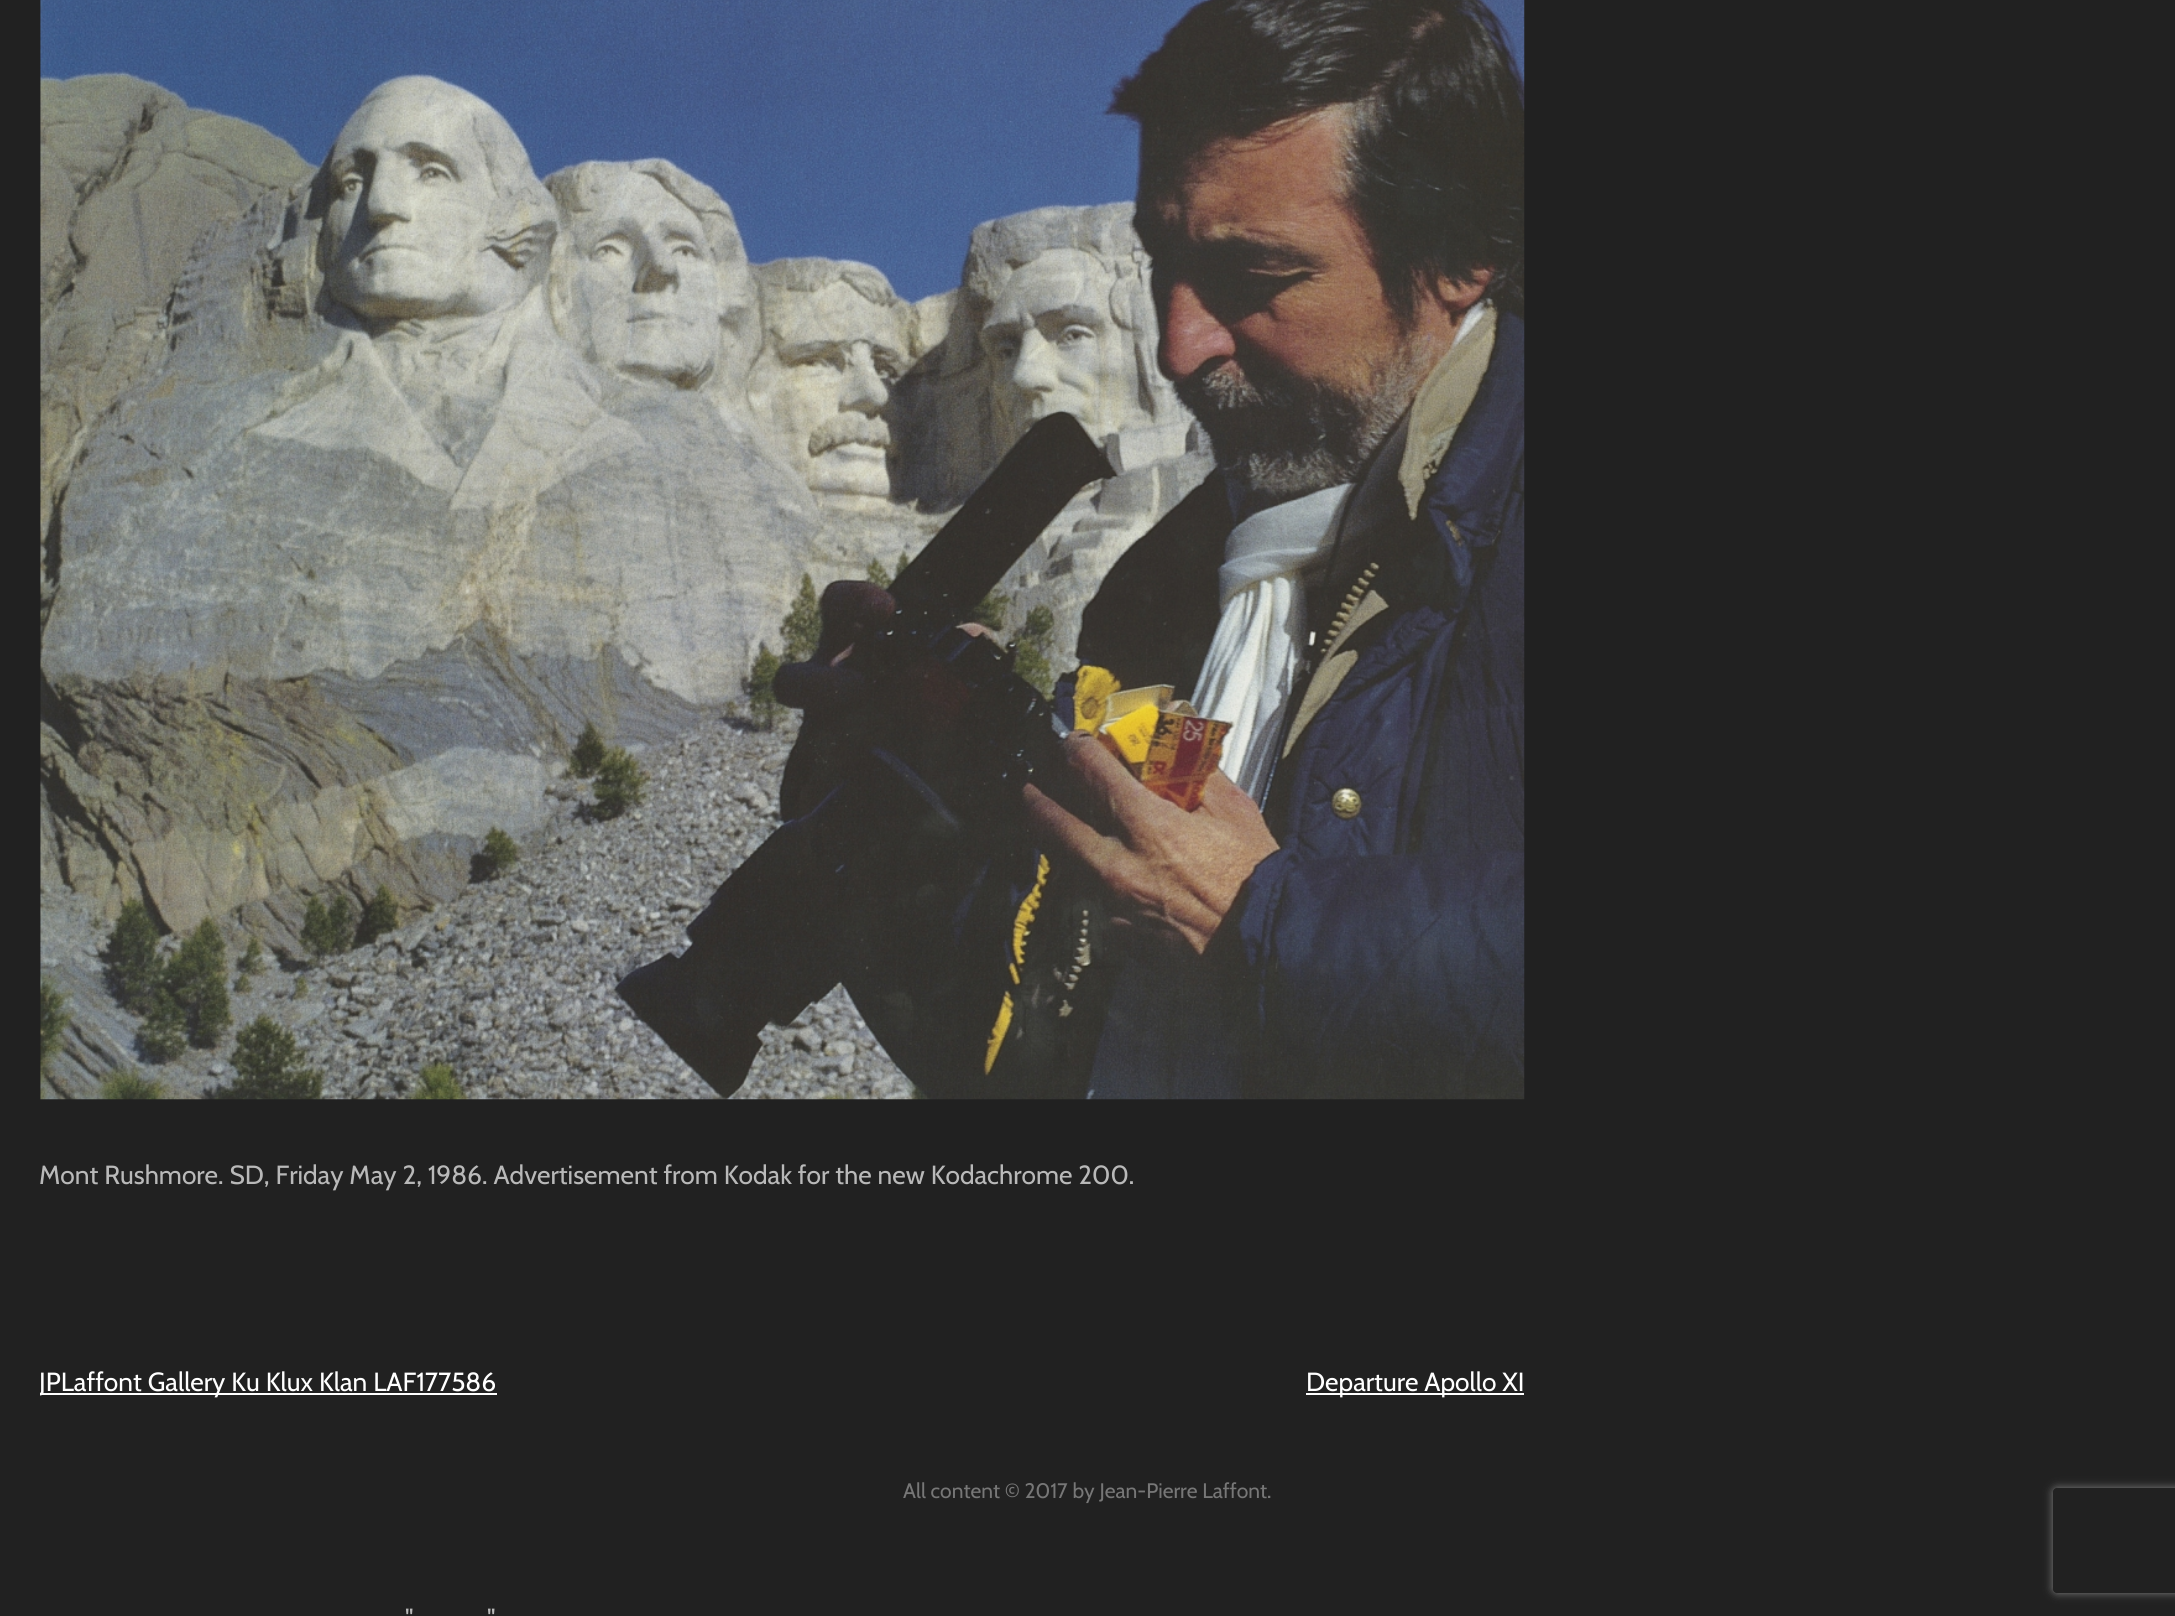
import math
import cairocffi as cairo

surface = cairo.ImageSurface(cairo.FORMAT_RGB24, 2175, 1616)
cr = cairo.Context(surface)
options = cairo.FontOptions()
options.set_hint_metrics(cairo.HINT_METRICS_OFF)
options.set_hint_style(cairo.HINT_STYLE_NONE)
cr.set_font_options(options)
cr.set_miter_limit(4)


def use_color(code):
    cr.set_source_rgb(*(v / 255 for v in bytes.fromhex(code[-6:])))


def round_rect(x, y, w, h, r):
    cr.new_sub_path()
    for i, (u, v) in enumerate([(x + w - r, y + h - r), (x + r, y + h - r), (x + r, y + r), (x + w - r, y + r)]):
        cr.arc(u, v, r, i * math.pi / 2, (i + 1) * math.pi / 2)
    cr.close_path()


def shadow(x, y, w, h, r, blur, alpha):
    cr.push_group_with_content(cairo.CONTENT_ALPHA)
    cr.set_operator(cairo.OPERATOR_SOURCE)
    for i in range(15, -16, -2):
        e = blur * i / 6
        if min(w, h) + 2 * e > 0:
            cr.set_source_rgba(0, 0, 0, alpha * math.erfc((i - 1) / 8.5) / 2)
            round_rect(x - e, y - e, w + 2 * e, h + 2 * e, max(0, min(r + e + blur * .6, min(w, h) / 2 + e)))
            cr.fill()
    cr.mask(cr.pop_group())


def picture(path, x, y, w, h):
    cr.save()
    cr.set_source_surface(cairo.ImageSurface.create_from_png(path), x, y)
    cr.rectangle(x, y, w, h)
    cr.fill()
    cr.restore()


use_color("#212121")
cr.paint()
picture("img1.png", 40, 0, 1485, 1100)
cr.select_font_face("Cabin")
cr.set_font_size(26.25)
use_color("#b9b9b9")
cr.move_to(39, 1184)
cr.show_text("Mont Rushmore. SD, Friday May 2, 1986. Advertisement from Kodak for the new Kodachrome 200.")
use_color("#ffffff")
cr.rectangle(40, 1393, 457, 2)
cr.fill()
cr.save()
cr.rectangle(40, 0, 2097, 1404)
cr.clip()
cr.move_to(39, 1391)
cr.show_text("JPLaffont Gallery Ku Klux Klan LAF177586")
cr.restore()
cr.rectangle(1306, 1393, 218, 2)
cr.fill()
cr.move_to(1306, 1391)
cr.show_text("Departure Apollo XI")
cr.set_font_size(21)
use_color("#777777")
cr.move_to(903, 1498)
cr.show_text("All content © 2017 by Jean-Pierre Laffont.")
cr.save()
cr.set_fill_rule(cairo.FILL_RULE_EVEN_ODD)
cr.new_path()
cr.move_to(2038, 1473)
cr.line_to(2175, 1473)
cr.line_to(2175, 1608)
cr.line_to(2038, 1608)
cr.close_path()
cr.move_to(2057, 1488)
cr.line_to(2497, 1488)
cr.curve_to(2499, 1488, 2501, 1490, 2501, 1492)
cr.line_to(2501, 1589)
cr.curve_to(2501, 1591, 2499, 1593, 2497, 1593)
cr.line_to(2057, 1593)
cr.curve_to(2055, 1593, 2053, 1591, 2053, 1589)
cr.line_to(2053, 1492)
cr.curve_to(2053, 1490, 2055, 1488, 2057, 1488)
cr.close_path()
cr.clip()
use_color("#808080")
shadow(2053, 1488, 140, 105, 4, 4.5, 1)
cr.restore()
cr.set_font_size(26.25)
use_color("#b9b9b9")
cr.move_to(405, 1627)
cr.show_text("\"")
cr.move_to(487, 1627)
cr.show_text("\"")
surface.write_to_png("result.png")
